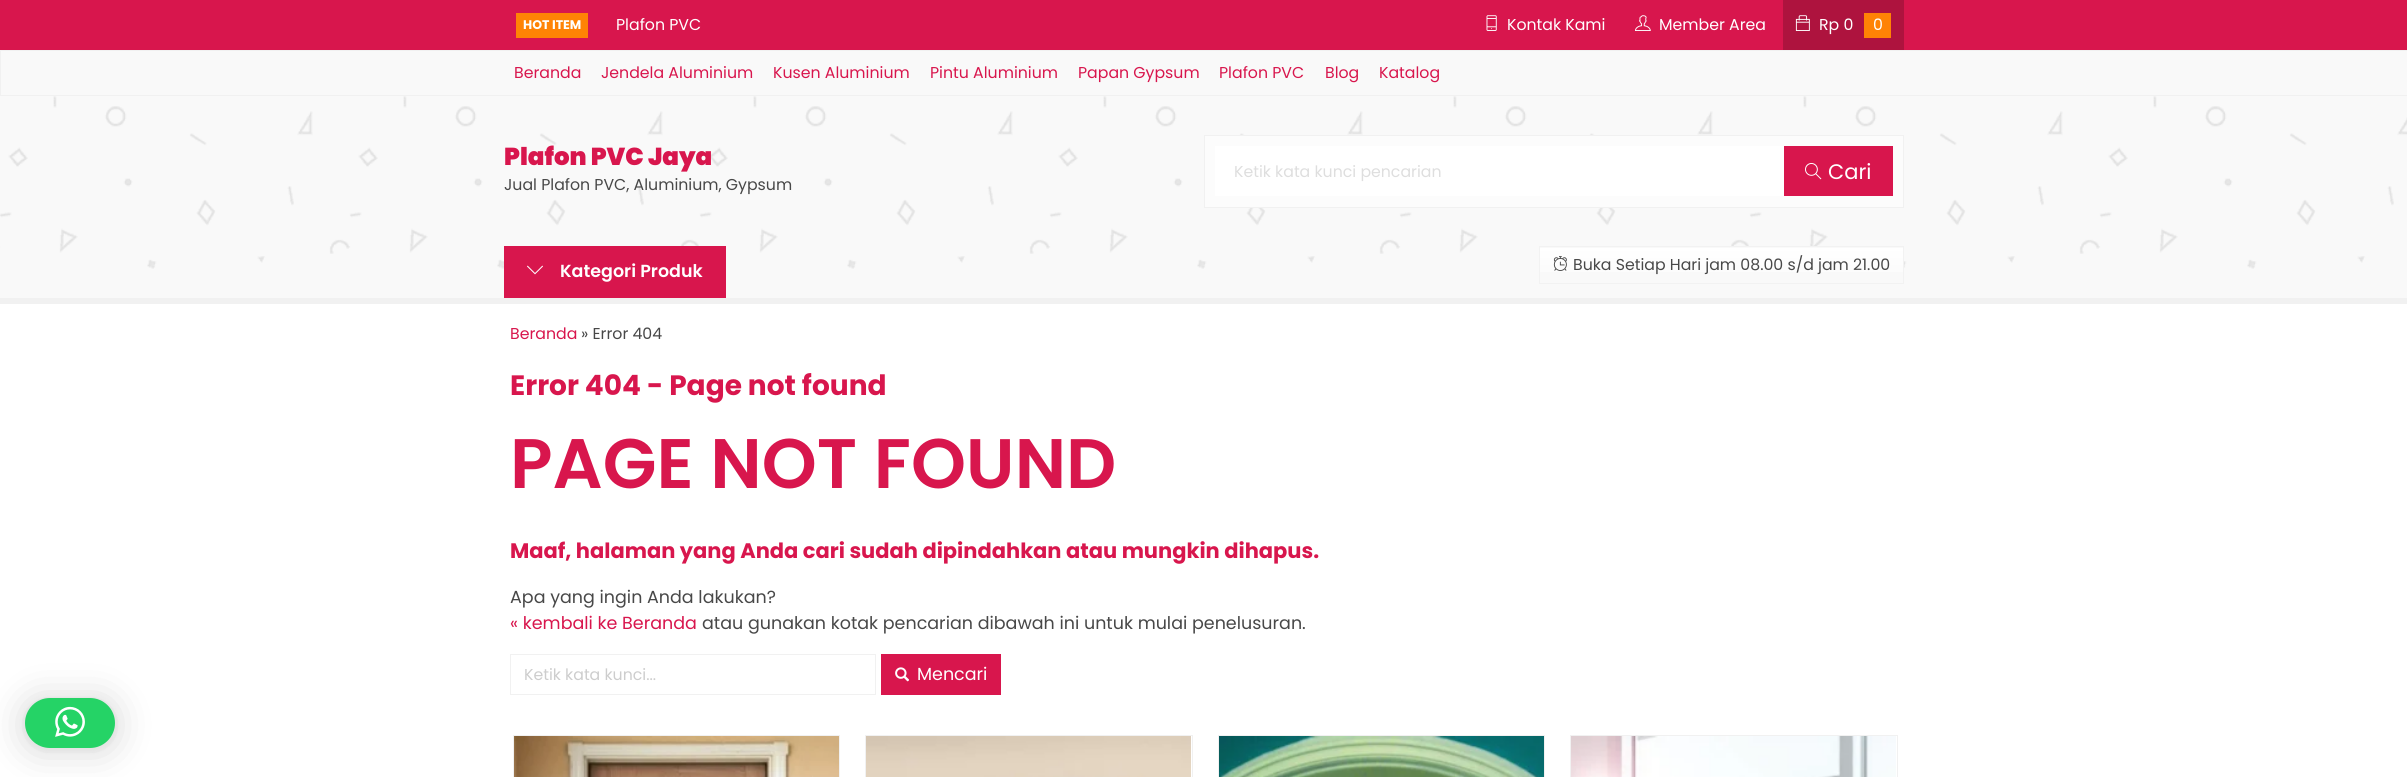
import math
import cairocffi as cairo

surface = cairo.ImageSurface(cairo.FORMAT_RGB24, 2407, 777)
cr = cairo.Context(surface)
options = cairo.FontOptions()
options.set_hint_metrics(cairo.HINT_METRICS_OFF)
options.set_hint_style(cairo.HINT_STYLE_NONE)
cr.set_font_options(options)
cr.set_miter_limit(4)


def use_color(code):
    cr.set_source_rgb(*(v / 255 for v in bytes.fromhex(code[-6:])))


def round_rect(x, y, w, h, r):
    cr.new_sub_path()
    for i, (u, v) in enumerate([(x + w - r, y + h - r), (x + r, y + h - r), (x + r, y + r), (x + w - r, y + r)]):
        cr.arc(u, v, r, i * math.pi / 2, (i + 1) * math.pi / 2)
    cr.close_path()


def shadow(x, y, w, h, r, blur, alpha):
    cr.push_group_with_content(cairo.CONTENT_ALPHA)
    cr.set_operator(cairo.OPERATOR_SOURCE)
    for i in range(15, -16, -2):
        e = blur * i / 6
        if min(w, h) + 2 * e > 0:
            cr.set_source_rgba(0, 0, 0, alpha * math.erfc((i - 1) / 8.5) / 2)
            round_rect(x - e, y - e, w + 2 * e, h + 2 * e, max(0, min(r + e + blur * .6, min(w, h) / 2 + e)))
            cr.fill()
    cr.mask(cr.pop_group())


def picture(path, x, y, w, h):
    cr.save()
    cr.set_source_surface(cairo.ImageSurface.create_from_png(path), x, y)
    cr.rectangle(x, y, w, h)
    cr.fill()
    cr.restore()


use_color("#f9f9f9")
cr.paint()
use_color("#d8164d")
cr.rectangle(0, 0, 2407, 50)
cr.fill()
use_color("#ff8305")
cr.rectangle(516, 13, 72, 25)
cr.fill()
cr.select_font_face("Poppins", cairo.FONT_SLANT_NORMAL, cairo.FONT_WEIGHT_BOLD)
cr.set_font_size(12.5)
use_color("#ffffff")
cr.move_to(523, 29)
cr.show_text("HOT ITEM")
cr.select_font_face("Poppins")
cr.set_font_size(15.75)
cr.move_to(616, 30)
cr.show_text("Plafon PVC")
picture("img1.png", 1486, 15, 11, 16)
cr.move_to(1507, 30)
cr.show_text("Kontak Kami")
picture("img2.png", 1635, 15, 16, 16)
cr.move_to(1659, 30)
cr.show_text("Member Area")
use_color("#ae133e")
cr.rectangle(1783, 0, 121, 50)
cr.fill()
picture("img3.png", 1795, 15, 15, 16)
use_color("#ffffff")
cr.move_to(1819, 30)
cr.show_text("Rp 0")
use_color("#ff8305")
cr.rectangle(1864, 13, 27, 25)
cr.fill()
use_color("#ffffff")
cr.move_to(1873, 30)
cr.show_text("0")
cr.rectangle(0.5, 50.5, 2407, 45)
use_color("#f1f1f1")
cr.set_line_width(1)
cr.stroke()
use_color("#d8164d")
cr.move_to(514, 78)
cr.show_text("Beranda")
cr.move_to(601, 78)
cr.show_text("Jendela Aluminium")
cr.move_to(773, 78)
cr.show_text("Kusen Aluminium")
cr.move_to(930, 78)
cr.show_text("Pintu Aluminium")
cr.move_to(1078, 78)
cr.show_text("Papan Gypsum")
cr.move_to(1219, 78)
cr.show_text("Plafon PVC")
cr.move_to(1325, 78)
cr.show_text("Blog")
cr.move_to(1379, 78)
cr.show_text("Katalog")
picture("img4.png", 0, 96, 2407, 173)
cr.select_font_face("Poppins Black")
cr.set_font_size(24.5)
cr.move_to(504, 165)
cr.show_text("Plafon PVC Jaya")
cr.select_font_face("Poppins")
cr.set_font_size(15.75)
use_color("#484848")
cr.move_to(504, 190)
cr.show_text("Jual Plafon PVC, Aluminium, Gypsum")
use_color("#fcfcfc")
cr.rectangle(1204.5, 135.5, 699, 72)
cr.fill_preserve()
use_color("#f1f1f1")
cr.stroke()
use_color("#ffffff")
cr.rectangle(1215, 146, 569, 50)
cr.fill()
use_color("#dedede")
cr.move_to(1234, 177)
cr.show_text("Ketik kata kunci pencarian")
use_color("#d8164d")
cr.rectangle(1784, 146, 109, 50)
cr.fill()
picture("img5.png", 1805, 163, 17, 17)
cr.set_font_size(21)
use_color("#ffffff")
cr.move_to(1828, 179)
cr.show_text("Cari")
use_color("#d8164d")
cr.rectangle(504, 246, 222, 52)
cr.fill()
picture("img6.png", 527, 265, 16, 10)
cr.select_font_face("Poppins SemiBold")
cr.set_font_size(17.5)
use_color("#ffffff")
cr.move_to(560, 277)
cr.show_text("Kategori Produk")
gradient = cairo.LinearGradient(1721, 248, 1721, 213)
gradient.add_color_stop_rgba(0, 0.98, 0.98, 0.98, 1)
gradient.add_color_stop_rgba(1, 1, 1, 1, 1)
cr.set_source(gradient)
cr.rectangle(1730, 247, 87, 1)
cr.fill()
gradient = cairo.LinearGradient(1721, 283, 1721, 248)
gradient.add_color_stop_rgba(0, 0.98, 0.98, 0.98, 1)
gradient.add_color_stop_rgba(1, 1, 1, 1, 1)
cr.set_source(gradient)
cr.rectangle(1540, 248, 363, 24)
cr.fill()
cr.rectangle(1539.5, 246.5, 364, 37)
use_color("#f2f2f2")
cr.stroke()
picture("img7.png", 1553, 256, 14, 15)
cr.select_font_face("Poppins")
cr.set_font_size(15.75)
use_color("#484848")
cr.move_to(1573, 270)
cr.show_text("Buka Setiap Hari jam 08.00 s/d jam 21.00")
use_color("#ffffff")
cr.rectangle(0, 304, 2407, 473)
cr.fill()
use_color("#f1f1f1")
cr.rectangle(0, 298, 2407, 6)
cr.fill()
use_color("#d8164d")
cr.move_to(510, 339)
cr.show_text("Beranda")
use_color("#484848")
cr.move_to(581, 339)
cr.show_text("» Error 404")
cr.select_font_face("Poppins", cairo.FONT_SLANT_NORMAL, cairo.FONT_WEIGHT_BOLD)
cr.set_font_size(28)
use_color("#d8164d")
cr.move_to(510, 395)
cr.show_text("Error 404 - Page not found")
cr.select_font_face("Poppins SemiBold")
cr.set_font_size(70)
cr.move_to(510, 488)
cr.show_text("PAGE NOT FOUND")
cr.select_font_face("Poppins", cairo.FONT_SLANT_NORMAL, cairo.FONT_WEIGHT_BOLD)
cr.set_font_size(21)
cr.move_to(510, 558)
cr.show_text("Maaf, halaman yang Anda cari sudah dipindahkan atau mungkin dihapus.")
cr.select_font_face("Poppins")
cr.set_font_size(17.5)
use_color("#484848")
cr.move_to(510, 603)
cr.show_text("Apa yang ingin Anda lakukan?")
use_color("#d8164d")
cr.move_to(510, 629)
cr.show_text("« kembali ke Beranda")
use_color("#484848")
cr.move_to(702, 629)
cr.show_text("atau gunakan kotak pencarian dibawah ini untuk mulai penelusuran.")
cr.rectangle(510.5, 654.5, 365, 40)
use_color("#f1f1f1")
cr.stroke()
cr.set_font_size(15.75)
use_color("#cdcdcd")
cr.move_to(524, 680)
cr.show_text("Ketik kata kunci...")
use_color("#d8164d")
cr.rectangle(881, 654, 120, 41)
cr.fill()
picture("img8.png", 895, 667, 14, 15)
cr.set_font_size(17.5)
use_color("#ffffff")
cr.move_to(917, 680)
cr.show_text("Mencari")
cr.rectangle(513.5, 735.5, 326, 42)
use_color("#f1f1f1")
cr.stroke()
picture("img9.png", 514, 736, 325, 41)
cr.rectangle(865.5, 735.5, 327, 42)
cr.stroke()
picture("img10.png", 866, 736, 325, 41)
cr.rectangle(1218.5, 735.5, 326, 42)
cr.stroke()
picture("img11.png", 1219, 736, 325, 41)
cr.rectangle(1570.5, 735.5, 327, 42)
cr.stroke()
picture("img12.png", 1571, 736, 325, 41)
use_color("#000000")
shadow(25, 700, 90, 50, 25, 20, 0.16)
shadow(25, 699, 90, 50, 25, 4, 0.06)
use_color("#25d366")
round_rect(25, 698, 90, 50, 25)
cr.fill()
picture("img13.png", 55, 706, 30, 31)
surface.write_to_png("result.png")
